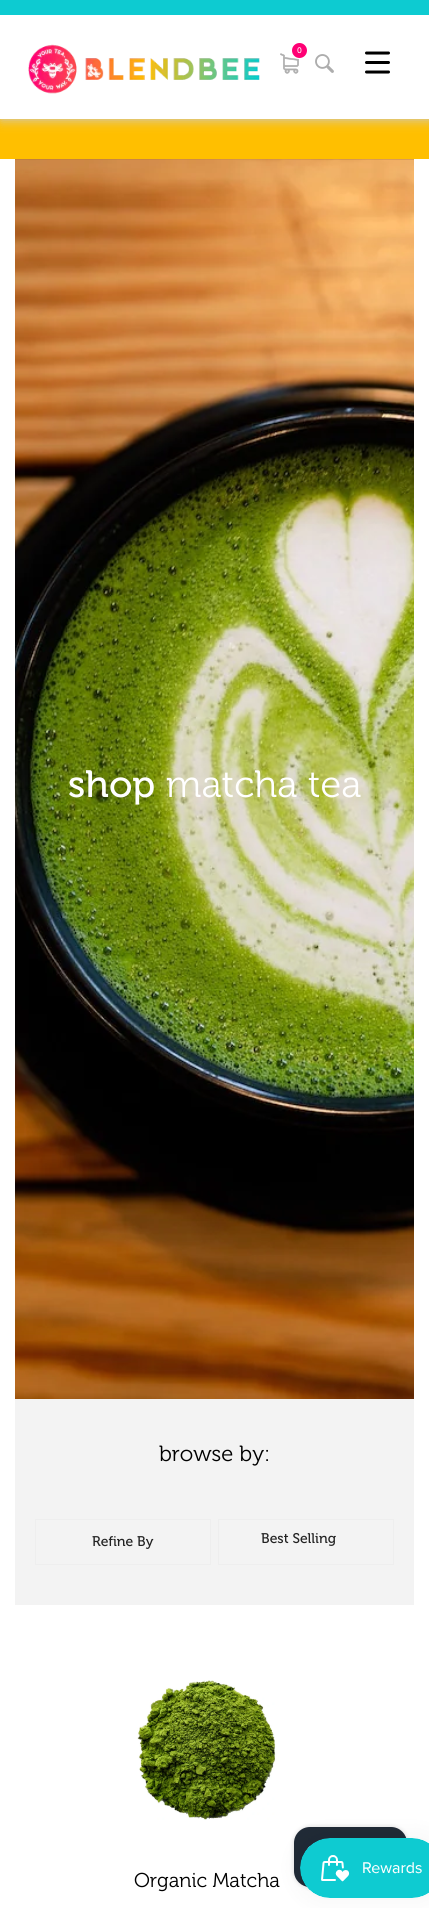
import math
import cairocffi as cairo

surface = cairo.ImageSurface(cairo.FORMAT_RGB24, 429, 1908)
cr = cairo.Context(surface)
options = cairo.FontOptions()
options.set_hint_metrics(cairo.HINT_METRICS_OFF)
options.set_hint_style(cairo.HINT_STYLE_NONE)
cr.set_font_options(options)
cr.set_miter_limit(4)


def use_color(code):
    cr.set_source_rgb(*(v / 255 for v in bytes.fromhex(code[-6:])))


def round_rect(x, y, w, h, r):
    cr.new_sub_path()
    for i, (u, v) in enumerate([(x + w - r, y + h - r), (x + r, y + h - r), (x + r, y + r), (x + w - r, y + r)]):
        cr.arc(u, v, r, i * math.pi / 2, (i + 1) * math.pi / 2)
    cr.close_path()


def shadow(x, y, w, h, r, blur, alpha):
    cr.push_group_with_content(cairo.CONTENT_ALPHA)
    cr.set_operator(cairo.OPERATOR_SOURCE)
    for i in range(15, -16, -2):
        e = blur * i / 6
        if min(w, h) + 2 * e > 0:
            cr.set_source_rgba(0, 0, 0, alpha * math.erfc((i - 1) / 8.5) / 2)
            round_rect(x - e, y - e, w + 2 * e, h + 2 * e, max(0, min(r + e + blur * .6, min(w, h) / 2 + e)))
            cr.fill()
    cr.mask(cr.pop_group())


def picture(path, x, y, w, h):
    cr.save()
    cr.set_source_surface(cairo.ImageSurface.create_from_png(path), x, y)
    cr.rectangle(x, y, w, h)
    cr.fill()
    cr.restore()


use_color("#ffffff")
cr.paint()
use_color("#ffbf00")
cr.rectangle(0, 119, 429, 40)
cr.fill()
use_color("#cccccc")
shadow(1, 1, 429, 119, 0, 5.5, 1)
use_color("#ffffff")
cr.rectangle(0, 15, 429, 104)
cr.fill()
use_color("#0dcbd1")
cr.rectangle(0, 0, 429, 15)
cr.fill()
picture("img1.png", 28, 44, 232, 50)
picture("img2.png", 280, 53, 19, 21)
use_color("#ff0074")
cr.arc(299.5, 50.5, 7.5, 0, 2 * math.pi)
cr.fill()
cr.select_font_face("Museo")
cr.set_font_size(8)
use_color("#ffffff")
cr.move_to(297, 53)
cr.show_text("0")
picture("img3.png", 315, 54, 19, 19)
cr.new_path()
cr.move_to(366.5, 53)
cr.line_to(388.5, 53)
cr.move_to(366.5, 62.5)
cr.line_to(388.5, 62.5)
cr.move_to(366.5, 72)
cr.line_to(388.5, 72)
use_color("#000000")
cr.set_line_width(3)
cr.set_line_cap(cairo.LINE_CAP_ROUND)
cr.stroke()
picture("img4.png", 15, 159, 399, 1240)
cr.set_font_size(38)
use_color("#ffffff")
cr.move_to(68, 797)
cr.show_text("shop")
cr.select_font_face("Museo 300 Light")
cr.move_to(166, 797)
cr.show_text("matcha tea")
use_color("#f3f3f3")
cr.rectangle(15, 1399, 399, 206)
cr.fill()
cr.set_font_size(22)
use_color("#000000")
cr.move_to(159, 1461)
cr.show_text("browse by:")
cr.rectangle(35.5, 1519.5, 175, 45)
use_color("#eeeeee")
cr.set_line_width(1)
cr.set_line_cap(cairo.LINE_CAP_BUTT)
cr.stroke()
cr.select_font_face("Museo")
cr.set_font_size(14)
use_color("#222222")
cr.move_to(92, 1546)
cr.show_text("Refine By")
cr.rectangle(218.5, 1519.5, 175, 45)
use_color("#eeeeee")
cr.stroke()
use_color("#222222")
cr.move_to(261, 1543)
cr.show_text("Best Selling")
picture("img5.png", 137, 1680, 140, 140)
cr.select_font_face("Museo 300 Light")
cr.set_font_size(20)
use_color("#000000")
cr.move_to(134, 1887)
cr.show_text("Organic Matcha")
use_color("#000000")
shadow(294, 1827, 113, 60, 16, 2.5, 0.15)
use_color("#202a36")
round_rect(294, 1827, 113, 60, 16)
cr.fill()
picture("img7.png", 307, 1845, 4, 4)
use_color("#000000")
shadow(300, 1838, 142, 60, 30, 12.5, 0.05)
picture("img6.png", 300, 1838, 129, 60)
surface.write_to_png("result.png")
